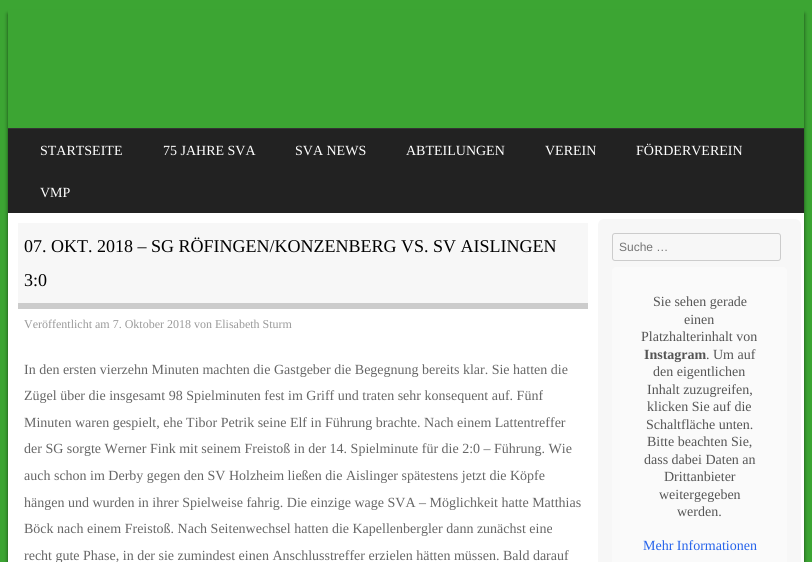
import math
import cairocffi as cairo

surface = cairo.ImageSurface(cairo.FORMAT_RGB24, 812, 562)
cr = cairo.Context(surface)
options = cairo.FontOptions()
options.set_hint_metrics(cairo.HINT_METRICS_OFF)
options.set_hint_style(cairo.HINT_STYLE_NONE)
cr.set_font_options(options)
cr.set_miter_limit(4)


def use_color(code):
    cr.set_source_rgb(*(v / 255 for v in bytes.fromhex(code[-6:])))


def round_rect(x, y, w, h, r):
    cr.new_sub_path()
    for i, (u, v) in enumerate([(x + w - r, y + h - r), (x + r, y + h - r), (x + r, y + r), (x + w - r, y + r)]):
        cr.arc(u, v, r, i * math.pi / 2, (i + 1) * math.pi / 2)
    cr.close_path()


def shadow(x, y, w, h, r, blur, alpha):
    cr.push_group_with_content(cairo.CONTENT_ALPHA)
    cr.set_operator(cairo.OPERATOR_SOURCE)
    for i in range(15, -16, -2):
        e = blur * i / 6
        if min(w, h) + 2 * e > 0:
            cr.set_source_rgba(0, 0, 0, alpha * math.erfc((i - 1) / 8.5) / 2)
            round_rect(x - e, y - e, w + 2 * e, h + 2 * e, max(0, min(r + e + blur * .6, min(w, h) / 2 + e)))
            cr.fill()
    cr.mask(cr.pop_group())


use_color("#3ca533")
cr.paint()
use_color("#000000")
shadow(8, 14, 796, 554, 0, 2, 0.6)
use_color("#3ca533")
cr.rectangle(8, 10, 796, 118)
cr.fill()
use_color("#222222")
cr.rectangle(8, 129, 796, 84)
cr.fill()
use_color("#333333")
cr.rectangle(8, 128, 796, 1)
cr.fill()
cr.select_font_face("Liberation Serif")
cr.set_font_size(14)
use_color("#ffffff")
cr.move_to(40, 155)
cr.show_text("STARTSEITE")
cr.move_to(163, 155)
cr.show_text("75 JAHRE SVA")
cr.move_to(295, 155)
cr.show_text("SVA NEWS")
cr.move_to(406, 155)
cr.show_text("ABTEILUNGEN")
cr.move_to(545, 155)
cr.show_text("VEREIN")
cr.move_to(636, 155)
cr.show_text("FÖRDERVEREIN")
cr.move_to(40, 197)
cr.show_text("VMP")
cr.rectangle(8, 213, 796, 349)
cr.fill()
use_color("#f7f7f7")
cr.rectangle(18, 223, 570, 80)
cr.fill()
use_color("#cccccc")
cr.rectangle(18, 303, 570, 6)
cr.fill()
cr.set_font_size(18)
use_color("#000000")
cr.move_to(24, 252)
cr.show_text("07. OKT. 2018 – SG RÖFINGEN/KONZENBERG VS. SV AISLINGEN")
cr.move_to(24, 286)
cr.show_text("3:0")
cr.set_font_size(12)
use_color("#999999")
cr.move_to(24, 328)
cr.show_text("Veröffentlicht am 7. Oktober 2018 von Elisabeth Sturm")
cr.set_font_size(14)
use_color("#666666")
cr.move_to(24, 374)
cr.show_text("In den ersten vierzehn Minuten machten die Gastgeber die Begegnung bereits klar. Sie hatten die")
cr.move_to(24, 400)
cr.show_text("Zügel über die insgesamt 98 Spielminuten fest im Griff und traten sehr konsequent auf. Fünf")
cr.move_to(24, 427)
cr.show_text("Minuten waren gespielt, ehe Tibor Petrik seine Elf in Führung brachte. Nach einem Lattentreffer")
cr.move_to(24, 453)
cr.show_text("der SG sorgte Werner Fink mit seinem Freistoß in der 14. Spielminute für die 2:0 – Führung. Wie")
cr.move_to(24, 480)
cr.show_text("auch schon im Derby gegen den SV Holzheim ließen die Aislinger spätestens jetzt die Köpfe")
cr.move_to(24, 507)
cr.show_text("hängen und wurden in ihrer Spielweise fahrig. Die einzige wage SVA – Möglichkeit hatte Matthias")
cr.move_to(24, 533)
cr.show_text("Böck nach einem Freistoß. Nach Seitenwechsel hatten die Kapellenbergler dann zunächst eine")
cr.move_to(24, 560)
cr.show_text("recht gute Phase, in der sie zumindest einen Anschlusstreffer erzielen hätten müssen. Bald darauf")
use_color("#f7f7f7")
round_rect(598, 219, 203, 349, 6)
cr.fill()
round_rect(612.5, 233.5, 168, 27, 2.5)
use_color("#cccccc")
cr.set_line_width(1)
cr.stroke()
cr.select_font_face("Liberation Sans")
cr.set_font_size(12)
use_color("#757575")
cr.move_to(619, 251)
cr.show_text("Suche …")
use_color("#fafafa")
round_rect(612, 267, 175, 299, 4)
cr.fill()
cr.select_font_face("Liberation Serif")
cr.set_font_size(14)
use_color("#555555")
cr.move_to(653, 306)
cr.show_text("Sie sehen gerade")
cr.move_to(684, 324)
cr.show_text("einen")
cr.move_to(641, 341)
cr.show_text("Platzhalterinhalt von")
cr.select_font_face("Liberation Serif", cairo.FONT_SLANT_NORMAL, cairo.FONT_WEIGHT_BOLD)
cr.move_to(644, 359)
cr.show_text("Instagram")
cr.select_font_face("Liberation Serif")
cr.move_to(706, 359)
cr.show_text(". Um auf")
cr.move_to(653, 376)
cr.show_text("den eigentlichen")
cr.move_to(647, 394)
cr.show_text("Inhalt zuzugreifen,")
cr.move_to(647, 411)
cr.show_text("klicken Sie auf die")
cr.move_to(646, 429)
cr.show_text("Schaltfläche unten.")
cr.move_to(647, 446)
cr.show_text("Bitte beachten Sie,")
cr.move_to(644, 464)
cr.show_text("dass dabei Daten an")
cr.move_to(664, 481)
cr.show_text("Drittanbieter")
cr.move_to(659, 499)
cr.show_text("weitergegeben")
cr.move_to(677, 516)
cr.show_text("werden.")
use_color("#2563eb")
cr.move_to(643, 550)
cr.show_text("Mehr Informationen")
surface.write_to_png("result.png")
